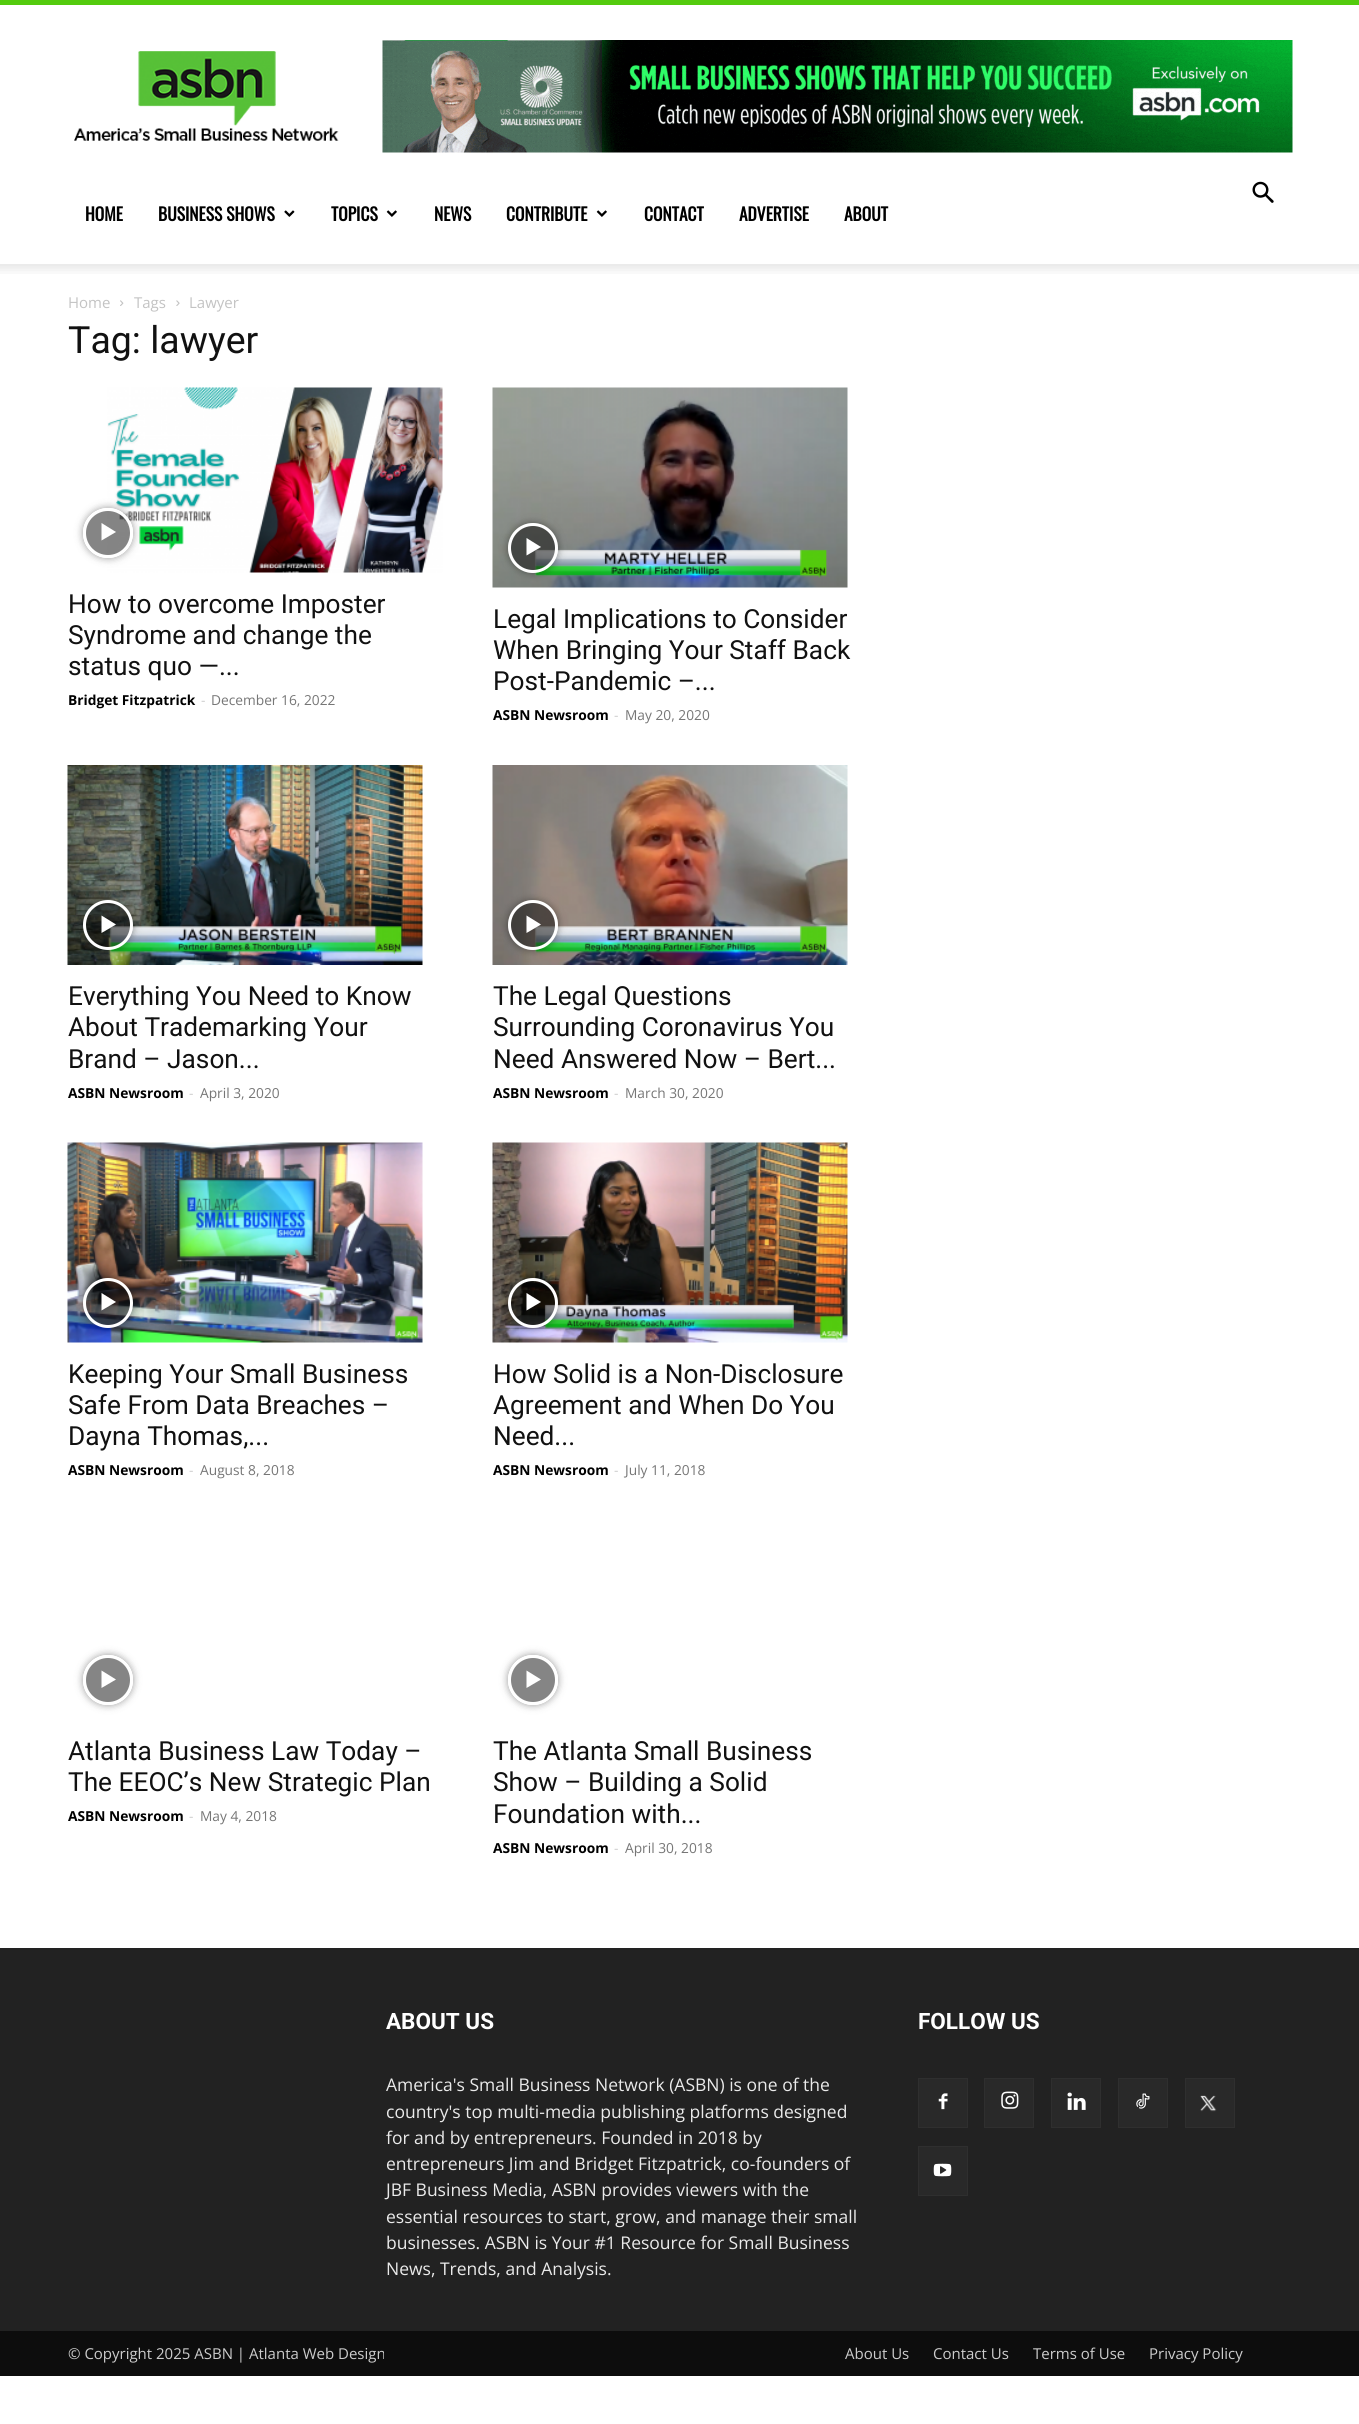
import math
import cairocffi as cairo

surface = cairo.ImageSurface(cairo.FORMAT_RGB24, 1359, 2424)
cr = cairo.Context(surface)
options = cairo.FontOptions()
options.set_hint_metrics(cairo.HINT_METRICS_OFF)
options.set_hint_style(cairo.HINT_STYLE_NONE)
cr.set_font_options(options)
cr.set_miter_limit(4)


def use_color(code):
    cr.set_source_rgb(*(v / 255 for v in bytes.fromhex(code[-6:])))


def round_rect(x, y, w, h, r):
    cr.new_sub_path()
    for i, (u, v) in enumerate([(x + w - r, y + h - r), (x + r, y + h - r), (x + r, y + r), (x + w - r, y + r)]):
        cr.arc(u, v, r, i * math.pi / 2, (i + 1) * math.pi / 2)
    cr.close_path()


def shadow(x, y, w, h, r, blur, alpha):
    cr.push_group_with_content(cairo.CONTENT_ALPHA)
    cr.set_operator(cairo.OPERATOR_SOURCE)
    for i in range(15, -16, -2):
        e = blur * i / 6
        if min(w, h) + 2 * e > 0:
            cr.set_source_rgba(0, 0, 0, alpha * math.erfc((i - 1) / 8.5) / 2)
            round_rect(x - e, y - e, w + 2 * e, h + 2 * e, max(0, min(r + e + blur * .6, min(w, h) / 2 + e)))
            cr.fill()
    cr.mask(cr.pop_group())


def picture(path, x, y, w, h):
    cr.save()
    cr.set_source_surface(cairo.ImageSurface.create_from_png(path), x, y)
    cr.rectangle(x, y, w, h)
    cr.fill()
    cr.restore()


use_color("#ffffff")
cr.paint()
use_color("#54cb0e")
cr.rectangle(0, 0, 1359, 5)
cr.fill()
picture("img1.png", 74, 51, 265, 90)
picture("img2.png", 382, 40, 911, 113)
picture("img3.png", 1252, 181, 22, 22)
cr.select_font_face("Oswald", cairo.FONT_SLANT_NORMAL, cairo.FONT_WEIGHT_BOLD)
cr.set_font_size(17.5)
use_color("#000000")
cr.move_to(85, 221)
cr.show_text("HOME")
cr.move_to(158, 221)
cr.show_text("BUSINESS SHOWS")
picture("img4.png", 284, 210, 11, 7)
cr.move_to(331, 221)
cr.show_text("TOPICS")
picture("img5.png", 386, 210, 11, 7)
cr.move_to(434, 221)
cr.show_text("NEWS")
cr.move_to(506, 221)
cr.show_text("CONTRIBUTE")
picture("img5.png", 596, 210, 11, 7)
cr.move_to(644, 221)
cr.show_text("CONTACT")
cr.move_to(739, 221)
cr.show_text("ADVERTISE")
cr.move_to(844, 221)
cr.show_text("ABOUT")
picture("img6.png", 0, 264, 1359, 10)
cr.select_font_face("Open Sans")
cr.set_font_size(15)
use_color("#c3c3c3")
cr.move_to(68, 308)
cr.show_text("Home")
picture("img7.png", 120, 300, 4, 6)
cr.move_to(134, 308)
cr.show_text("Tags")
picture("img8.png", 176, 300, 4, 6)
cr.move_to(189, 308)
cr.show_text("Lawyer")
cr.select_font_face("Roboto")
cr.set_font_size(37.5)
use_color("#111111")
cr.move_to(68, 353)
cr.show_text("Tag: lawyer")
picture("img9.png", 107, 387, 336, 186)
cr.save()
cr.set_fill_rule(cairo.FILL_RULE_EVEN_ODD)
cr.new_path()
cr.move_to(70, 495)
cr.line_to(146, 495)
cr.line_to(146, 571)
cr.line_to(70, 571)
cr.close_path()
cr.move_to(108, 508)
cr.curve_to(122, 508, 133, 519, 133, 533)
cr.curve_to(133, 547, 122, 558, 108, 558)
cr.curve_to(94, 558, 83, 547, 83, 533)
cr.curve_to(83, 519, 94, 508, 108, 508)
cr.close_path()
cr.clip()
use_color("#000000")
shadow(83, 508, 50, 50, 25, 4, 0.4)
cr.restore()
cr.set_source_rgba(0, 0, 0, 0.48)
cr.arc(108, 533, 23.5, 0, 2 * math.pi)
cr.fill_preserve()
use_color("#ffffff")
cr.set_line_width(3)
cr.stroke()
cr.new_path()
cr.move_to(101.5, 523)
cr.line_to(101.5, 540.5)
cr.line_to(116, 532)
cr.close_path()
cr.fill()
cr.set_font_size(26.25)
use_color("#111111")
cr.move_to(68, 613)
cr.show_text("How to overcome Imposter")
cr.move_to(68, 644)
cr.show_text("Syndrome and change the")
cr.move_to(68, 675)
cr.show_text("status quo —...")
cr.select_font_face("Open Sans", cairo.FONT_SLANT_NORMAL, cairo.FONT_WEIGHT_BOLD)
cr.set_font_size(13.75)
use_color("#000000")
cr.move_to(68, 705)
cr.show_text("Bridget Fitzpatrick")
cr.select_font_face("Open Sans")
use_color("#cccccc")
cr.move_to(201, 705)
cr.show_text("-")
use_color("#767676")
cr.move_to(211, 705)
cr.show_text("December 16, 2022")
picture("img10.png", 492, 387, 356, 201)
cr.save()
cr.set_fill_rule(cairo.FILL_RULE_EVEN_ODD)
cr.new_path()
cr.move_to(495, 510)
cr.line_to(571, 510)
cr.line_to(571, 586)
cr.line_to(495, 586)
cr.close_path()
cr.move_to(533, 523)
cr.curve_to(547, 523, 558, 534, 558, 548)
cr.curve_to(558, 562, 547, 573, 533, 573)
cr.curve_to(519, 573, 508, 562, 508, 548)
cr.curve_to(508, 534, 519, 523, 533, 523)
cr.close_path()
cr.clip()
use_color("#000000")
shadow(508, 523, 50, 50, 25, 4, 0.4)
cr.restore()
cr.set_source_rgba(0, 0, 0, 0.48)
cr.arc(533, 548, 23.5, 0, 2 * math.pi)
cr.fill_preserve()
use_color("#ffffff")
cr.stroke()
cr.new_path()
cr.move_to(526.5, 538)
cr.line_to(526.5, 555.5)
cr.line_to(541, 547)
cr.close_path()
cr.fill()
cr.select_font_face("Roboto")
cr.set_font_size(26.25)
use_color("#111111")
cr.move_to(493, 628)
cr.show_text("Legal Implications to Consider")
cr.move_to(493, 659)
cr.show_text("When Bringing Your Staff Back")
cr.move_to(493, 690)
cr.show_text("Post-Pandemic –...")
cr.select_font_face("Open Sans", cairo.FONT_SLANT_NORMAL, cairo.FONT_WEIGHT_BOLD)
cr.set_font_size(13.75)
use_color("#000000")
cr.move_to(493, 720)
cr.show_text("ASBN Newsroom")
cr.select_font_face("Open Sans")
use_color("#cccccc")
cr.move_to(614, 720)
cr.show_text("-")
use_color("#767676")
cr.move_to(625, 720)
cr.show_text("May 20, 2020")
picture("img11.png", 67, 765, 356, 200)
cr.save()
cr.set_fill_rule(cairo.FILL_RULE_EVEN_ODD)
cr.new_path()
cr.move_to(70, 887)
cr.line_to(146, 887)
cr.line_to(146, 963)
cr.line_to(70, 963)
cr.close_path()
cr.move_to(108, 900)
cr.curve_to(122, 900, 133, 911, 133, 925)
cr.curve_to(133, 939, 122, 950, 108, 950)
cr.curve_to(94, 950, 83, 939, 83, 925)
cr.curve_to(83, 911, 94, 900, 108, 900)
cr.close_path()
cr.clip()
use_color("#000000")
shadow(83, 900, 50, 50, 25, 4, 0.4)
cr.restore()
cr.set_source_rgba(0, 0, 0, 0.48)
cr.arc(108, 925, 23.5, 0, 2 * math.pi)
cr.fill_preserve()
use_color("#ffffff")
cr.stroke()
cr.new_path()
cr.move_to(101.5, 915.5)
cr.line_to(101.5, 933)
cr.line_to(116, 924.5)
cr.close_path()
cr.fill()
cr.select_font_face("Roboto")
cr.set_font_size(26.25)
use_color("#111111")
cr.move_to(68, 1005)
cr.show_text("Everything You Need to Know")
cr.move_to(68, 1036)
cr.show_text("About Trademarking Your")
cr.move_to(68, 1068)
cr.show_text("Brand – Jason...")
cr.select_font_face("Open Sans", cairo.FONT_SLANT_NORMAL, cairo.FONT_WEIGHT_BOLD)
cr.set_font_size(13.75)
use_color("#000000")
cr.move_to(68, 1098)
cr.show_text("ASBN Newsroom")
cr.select_font_face("Open Sans")
use_color("#cccccc")
cr.move_to(189, 1098)
cr.show_text("-")
use_color("#767676")
cr.move_to(200, 1098)
cr.show_text("April 3, 2020")
picture("img12.png", 492, 765, 356, 200)
cr.save()
cr.set_fill_rule(cairo.FILL_RULE_EVEN_ODD)
cr.new_path()
cr.move_to(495, 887)
cr.line_to(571, 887)
cr.line_to(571, 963)
cr.line_to(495, 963)
cr.close_path()
cr.move_to(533, 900)
cr.curve_to(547, 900, 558, 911, 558, 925)
cr.curve_to(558, 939, 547, 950, 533, 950)
cr.curve_to(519, 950, 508, 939, 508, 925)
cr.curve_to(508, 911, 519, 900, 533, 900)
cr.close_path()
cr.clip()
use_color("#000000")
shadow(508, 900, 50, 50, 25, 4, 0.4)
cr.restore()
cr.set_source_rgba(0, 0, 0, 0.48)
cr.arc(533, 925, 23.5, 0, 2 * math.pi)
cr.fill_preserve()
use_color("#ffffff")
cr.stroke()
cr.new_path()
cr.move_to(526.5, 915.5)
cr.line_to(526.5, 933)
cr.line_to(541, 924.5)
cr.close_path()
cr.fill()
cr.select_font_face("Roboto")
cr.set_font_size(26.25)
use_color("#111111")
cr.move_to(493, 1005)
cr.show_text("The Legal Questions")
cr.move_to(493, 1036)
cr.show_text("Surrounding Coronavirus You")
cr.move_to(493, 1068)
cr.show_text("Need Answered Now – Bert...")
cr.select_font_face("Open Sans", cairo.FONT_SLANT_NORMAL, cairo.FONT_WEIGHT_BOLD)
cr.set_font_size(13.75)
use_color("#000000")
cr.move_to(493, 1098)
cr.show_text("ASBN Newsroom")
cr.select_font_face("Open Sans")
use_color("#cccccc")
cr.move_to(614, 1098)
cr.show_text("-")
use_color("#767676")
cr.move_to(625, 1098)
cr.show_text("March 30, 2020")
picture("img13.png", 67, 1142, 356, 201)
cr.save()
cr.set_fill_rule(cairo.FILL_RULE_EVEN_ODD)
cr.new_path()
cr.move_to(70, 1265)
cr.line_to(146, 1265)
cr.line_to(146, 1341)
cr.line_to(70, 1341)
cr.close_path()
cr.move_to(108, 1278)
cr.curve_to(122, 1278, 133, 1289, 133, 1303)
cr.curve_to(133, 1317, 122, 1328, 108, 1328)
cr.curve_to(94, 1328, 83, 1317, 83, 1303)
cr.curve_to(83, 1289, 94, 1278, 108, 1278)
cr.close_path()
cr.clip()
use_color("#000000")
shadow(83, 1278, 50, 50, 25, 4, 0.4)
cr.restore()
cr.set_source_rgba(0, 0, 0, 0.48)
cr.arc(108, 1303, 23.5, 0, 2 * math.pi)
cr.fill_preserve()
use_color("#ffffff")
cr.stroke()
cr.new_path()
cr.move_to(101.5, 1293)
cr.line_to(101.5, 1310.5)
cr.line_to(116, 1302)
cr.close_path()
cr.fill()
cr.select_font_face("Roboto")
cr.set_font_size(26.25)
use_color("#111111")
cr.move_to(68, 1383)
cr.show_text("Keeping Your Small Business")
cr.move_to(68, 1414)
cr.show_text("Safe From Data Breaches –")
cr.move_to(68, 1445)
cr.show_text("Dayna Thomas,...")
cr.select_font_face("Open Sans", cairo.FONT_SLANT_NORMAL, cairo.FONT_WEIGHT_BOLD)
cr.set_font_size(13.75)
use_color("#000000")
cr.move_to(68, 1475)
cr.show_text("ASBN Newsroom")
cr.select_font_face("Open Sans")
use_color("#cccccc")
cr.move_to(189, 1475)
cr.show_text("-")
use_color("#767676")
cr.move_to(200, 1475)
cr.show_text("August 8, 2018")
picture("img14.png", 492, 1142, 356, 201)
cr.save()
cr.set_fill_rule(cairo.FILL_RULE_EVEN_ODD)
cr.new_path()
cr.move_to(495, 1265)
cr.line_to(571, 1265)
cr.line_to(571, 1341)
cr.line_to(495, 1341)
cr.close_path()
cr.move_to(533, 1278)
cr.curve_to(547, 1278, 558, 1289, 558, 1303)
cr.curve_to(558, 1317, 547, 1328, 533, 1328)
cr.curve_to(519, 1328, 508, 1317, 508, 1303)
cr.curve_to(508, 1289, 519, 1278, 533, 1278)
cr.close_path()
cr.clip()
use_color("#000000")
shadow(508, 1278, 50, 50, 25, 4, 0.4)
cr.restore()
cr.set_source_rgba(0, 0, 0, 0.48)
cr.arc(533, 1303, 23.5, 0, 2 * math.pi)
cr.fill_preserve()
use_color("#ffffff")
cr.stroke()
cr.new_path()
cr.move_to(526.5, 1293)
cr.line_to(526.5, 1310.5)
cr.line_to(541, 1302)
cr.close_path()
cr.fill()
cr.select_font_face("Roboto")
cr.set_font_size(26.25)
use_color("#111111")
cr.move_to(493, 1383)
cr.show_text("How Solid is a Non-Disclosure")
cr.move_to(493, 1414)
cr.show_text("Agreement and When Do You")
cr.move_to(493, 1445)
cr.show_text("Need...")
cr.select_font_face("Open Sans", cairo.FONT_SLANT_NORMAL, cairo.FONT_WEIGHT_BOLD)
cr.set_font_size(13.75)
use_color("#000000")
cr.move_to(493, 1475)
cr.show_text("ASBN Newsroom")
cr.select_font_face("Open Sans")
use_color("#cccccc")
cr.move_to(614, 1475)
cr.show_text("-")
use_color("#767676")
cr.move_to(625, 1475)
cr.show_text("July 11, 2018")
cr.save()
cr.set_fill_rule(cairo.FILL_RULE_EVEN_ODD)
cr.new_path()
cr.move_to(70, 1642)
cr.line_to(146, 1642)
cr.line_to(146, 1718)
cr.line_to(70, 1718)
cr.close_path()
cr.move_to(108, 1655)
cr.curve_to(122, 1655, 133, 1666, 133, 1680)
cr.curve_to(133, 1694, 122, 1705, 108, 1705)
cr.curve_to(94, 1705, 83, 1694, 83, 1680)
cr.curve_to(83, 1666, 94, 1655, 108, 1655)
cr.close_path()
cr.clip()
use_color("#000000")
shadow(83, 1655, 50, 50, 25, 4, 0.4)
cr.restore()
cr.set_source_rgba(0, 0, 0, 0.48)
cr.arc(108, 1680, 23.5, 0, 2 * math.pi)
cr.fill_preserve()
use_color("#ffffff")
cr.stroke()
cr.new_path()
cr.move_to(101.5, 1670.5)
cr.line_to(101.5, 1688)
cr.line_to(116, 1679.5)
cr.close_path()
cr.fill()
cr.select_font_face("Roboto")
cr.set_font_size(26.25)
use_color("#111111")
cr.move_to(68, 1760)
cr.show_text("Atlanta Business Law Today –")
cr.move_to(68, 1791)
cr.show_text("The EEOC’s New Strategic Plan")
cr.select_font_face("Open Sans", cairo.FONT_SLANT_NORMAL, cairo.FONT_WEIGHT_BOLD)
cr.set_font_size(13.75)
use_color("#000000")
cr.move_to(68, 1821)
cr.show_text("ASBN Newsroom")
cr.select_font_face("Open Sans")
use_color("#cccccc")
cr.move_to(189, 1821)
cr.show_text("-")
use_color("#767676")
cr.move_to(200, 1821)
cr.show_text("May 4, 2018")
cr.save()
cr.set_fill_rule(cairo.FILL_RULE_EVEN_ODD)
cr.new_path()
cr.move_to(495, 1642)
cr.line_to(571, 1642)
cr.line_to(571, 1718)
cr.line_to(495, 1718)
cr.close_path()
cr.move_to(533, 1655)
cr.curve_to(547, 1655, 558, 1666, 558, 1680)
cr.curve_to(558, 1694, 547, 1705, 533, 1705)
cr.curve_to(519, 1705, 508, 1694, 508, 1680)
cr.curve_to(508, 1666, 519, 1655, 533, 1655)
cr.close_path()
cr.clip()
use_color("#000000")
shadow(508, 1655, 50, 50, 25, 4, 0.4)
cr.restore()
cr.set_source_rgba(0, 0, 0, 0.48)
cr.arc(533, 1680, 23.5, 0, 2 * math.pi)
cr.fill_preserve()
use_color("#ffffff")
cr.stroke()
cr.new_path()
cr.move_to(526.5, 1670.5)
cr.line_to(526.5, 1688)
cr.line_to(541, 1679.5)
cr.close_path()
cr.fill()
cr.select_font_face("Roboto")
cr.set_font_size(26.25)
use_color("#111111")
cr.move_to(493, 1760)
cr.show_text("The Atlanta Small Business")
cr.move_to(493, 1791)
cr.show_text("Show – Building a Solid")
cr.move_to(493, 1823)
cr.show_text("Foundation with...")
cr.select_font_face("Open Sans", cairo.FONT_SLANT_NORMAL, cairo.FONT_WEIGHT_BOLD)
cr.set_font_size(13.75)
use_color("#000000")
cr.move_to(493, 1853)
cr.show_text("ASBN Newsroom")
cr.select_font_face("Open Sans")
use_color("#cccccc")
cr.move_to(614, 1853)
cr.show_text("-")
use_color("#767676")
cr.move_to(625, 1853)
cr.show_text("April 30, 2018")
use_color("#222222")
cr.rectangle(0, 1948, 1359, 383)
cr.fill()
cr.select_font_face("Roboto", cairo.FONT_SLANT_NORMAL, cairo.FONT_WEIGHT_BOLD)
cr.set_font_size(22.5)
use_color("#ffffff")
cr.move_to(386, 2029)
cr.show_text("ABOUT US")
cr.select_font_face("Open Sans")
cr.set_font_size(17.5)
use_color("#eaeaea")
cr.move_to(386, 2091)
cr.show_text("America's Small Business Network (ASBN) is one of the")
cr.move_to(386, 2118)
cr.show_text("country's top multi-media publishing platforms designed")
cr.move_to(386, 2144)
cr.show_text("for and by entrepreneurs. Founded in 2018 by")
cr.move_to(386, 2170)
cr.show_text("entrepreneurs Jim and Bridget Fitzpatrick, co-founders of")
cr.move_to(386, 2196)
cr.show_text("JBF Business Media, ASBN provides viewers with the")
cr.move_to(386, 2223)
cr.show_text("essential resources to start, grow, and manage their small")
cr.move_to(386, 2249)
cr.show_text("businesses. ASBN is Your #1 Resource for Small Business")
cr.move_to(386, 2275)
cr.show_text("News, Trends, and Analysis.")
cr.select_font_face("Roboto", cairo.FONT_SLANT_NORMAL, cairo.FONT_WEIGHT_BOLD)
cr.set_font_size(22.5)
use_color("#ffffff")
cr.move_to(918, 2029)
cr.show_text("FOLLOW US")
use_color("#292929")
cr.rectangle(919, 2079, 48, 48)
cr.fill()
picture("img15.png", 938, 2093, 10, 17)
cr.rectangle(918.5, 2078.5, 49, 49)
use_color("#2f2f2f")
cr.set_line_width(1)
cr.stroke()
use_color("#292929")
cr.rectangle(985, 2079, 48, 48)
cr.fill()
picture("img16.png", 1001, 2091, 18, 18)
cr.rectangle(984.5, 2078.5, 49, 49)
use_color("#2f2f2f")
cr.stroke()
use_color("#292929")
cr.rectangle(1052, 2079, 48, 48)
cr.fill()
picture("img17.png", 1067, 2092, 19, 18)
cr.rectangle(1051.5, 2078.5, 49, 49)
use_color("#2f2f2f")
cr.stroke()
use_color("#292929")
cr.rectangle(1119, 2079, 48, 48)
cr.fill()
picture("img18.png", 1136, 2093, 14, 16)
cr.rectangle(1118.5, 2078.5, 49, 49)
use_color("#2f2f2f")
cr.stroke()
use_color("#292929")
cr.rectangle(1185.5, 2078.5, 49, 49)
cr.fill_preserve()
use_color("#2f2f2f")
cr.stroke()
picture("img19.png", 1200, 2095, 17, 17)
use_color("#292929")
cr.rectangle(919, 2147, 48, 48)
cr.fill()
picture("img20.png", 933, 2163, 19, 14)
cr.rectangle(918.5, 2146.5, 49, 49)
use_color("#2f2f2f")
cr.stroke()
use_color("#0d0d0d")
cr.rectangle(0, 2331, 1359, 45)
cr.fill()
cr.select_font_face("Open Sans")
cr.set_font_size(15)
use_color("#cccccc")
cr.move_to(68, 2359)
cr.show_text("© Copyright 2025 ASBN | Atlanta Web Design")
cr.move_to(845, 2359)
cr.show_text("About Us")
cr.move_to(933, 2359)
cr.show_text("Contact Us")
cr.move_to(1033, 2359)
cr.show_text("Terms of Use")
cr.move_to(1149, 2359)
cr.show_text("Privacy Policy")
surface.write_to_png("result.png")
